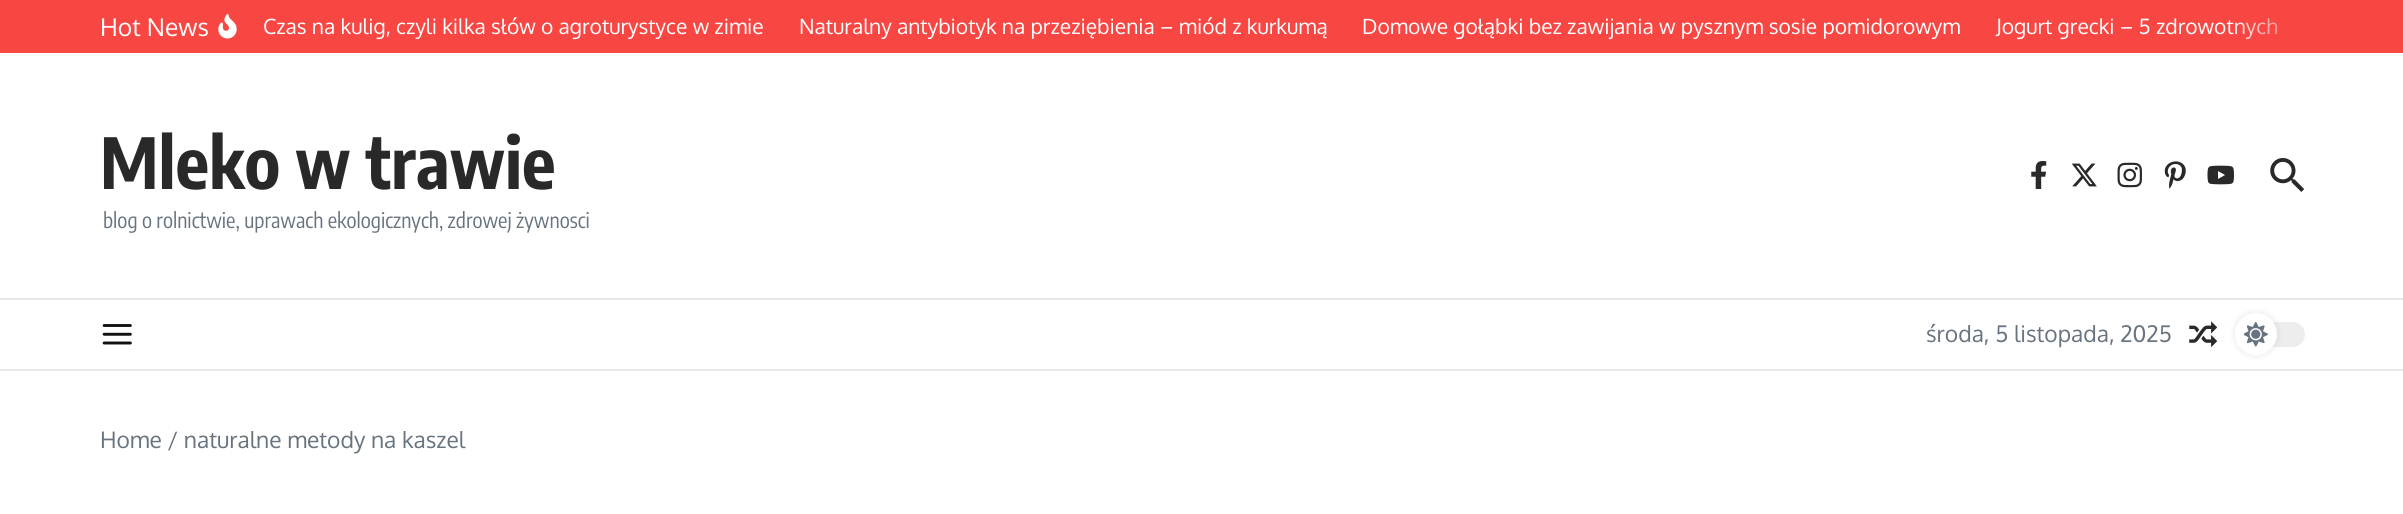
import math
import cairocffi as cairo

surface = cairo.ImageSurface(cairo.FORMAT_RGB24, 2403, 514)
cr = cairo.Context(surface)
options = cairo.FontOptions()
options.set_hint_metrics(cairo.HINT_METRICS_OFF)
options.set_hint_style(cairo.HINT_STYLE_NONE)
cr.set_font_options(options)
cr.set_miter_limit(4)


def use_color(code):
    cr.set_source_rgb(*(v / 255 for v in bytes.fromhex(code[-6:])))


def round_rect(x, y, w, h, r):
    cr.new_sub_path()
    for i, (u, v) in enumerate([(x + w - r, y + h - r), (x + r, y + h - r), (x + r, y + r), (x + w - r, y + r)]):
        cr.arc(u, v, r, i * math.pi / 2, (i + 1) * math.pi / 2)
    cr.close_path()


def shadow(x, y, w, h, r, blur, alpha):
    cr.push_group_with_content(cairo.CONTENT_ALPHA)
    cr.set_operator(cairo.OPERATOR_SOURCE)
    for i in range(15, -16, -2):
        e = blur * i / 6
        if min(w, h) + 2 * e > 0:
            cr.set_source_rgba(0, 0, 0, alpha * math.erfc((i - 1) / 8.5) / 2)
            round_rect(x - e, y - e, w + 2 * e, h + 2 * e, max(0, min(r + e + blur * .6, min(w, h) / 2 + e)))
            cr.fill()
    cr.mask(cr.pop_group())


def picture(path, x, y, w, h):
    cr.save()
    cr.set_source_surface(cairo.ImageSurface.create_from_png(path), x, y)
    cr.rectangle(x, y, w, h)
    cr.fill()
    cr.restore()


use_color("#ffffff")
cr.paint()
use_color("#f84643")
cr.rectangle(0, 0, 2403, 53)
cr.fill()
cr.select_font_face("Oxygen")
cr.set_font_size(24.5)
use_color("#ffffff")
cr.move_to(100, 36)
cr.show_text("Hot News")
picture("img1.png", 218, 14, 19, 25)
cr.set_font_size(21)
cr.move_to(263, 34)
cr.show_text("Czas na kulig, czyli kilka słów o agroturystyce w zimie")
cr.move_to(799, 34)
cr.show_text("Naturalny antybiotyk na przeziębienia – miód z kurkumą")
cr.move_to(1362, 34)
cr.show_text("Domowe gołąbki bez zawijania w pysznym sosie pomidorowym")
cr.move_to(1996, 34)
cr.show_text("Jogurt grecki – 5 zdrowotnych")
gradient = cairo.LinearGradient(2228, 27, 2315, 27)
gradient.add_color_stop_rgba(0, 0.973, 0.275, 0.263, 0)
gradient.add_color_stop_rgba(1, 0.973, 0.275, 0.263, 1)
cr.set_source(gradient)
cr.rectangle(2230, 18, 47, 22)
cr.fill()
use_color("#e8e8e8")
cr.rectangle(0, 298, 2403, 2)
cr.fill()
cr.select_font_face("Encode Sans Condensed", cairo.FONT_SLANT_NORMAL, cairo.FONT_WEIGHT_BOLD)
cr.set_font_size(70)
use_color("#292929")
cr.move_to(100, 189)
cr.show_text("Mleko w trawie")
cr.select_font_face("Encode Sans Condensed")
cr.set_font_size(21)
use_color("#67737e")
cr.move_to(103, 228)
cr.show_text("blog o rolnictwie, uprawach ekologicznych, zdrowej żywnosci")
picture("img2.png", 2031, 161, 16, 28)
picture("img3.png", 2071, 163, 26, 24)
picture("img4.png", 2117, 162, 25, 26)
picture("img5.png", 2164, 161, 22, 28)
picture("img6.png", 2207, 165, 27, 20)
picture("img7.png", 2270, 158, 35, 34)
use_color("#e8e8e8")
cr.rectangle(0, 369, 2403, 2)
cr.fill()
picture("img8.png", 102, 324, 30, 21)
cr.select_font_face("Oxygen")
cr.set_font_size(22.75)
use_color("#67737e")
cr.move_to(1926, 342)
cr.show_text("środa, 5 listopada, 2025")
picture("img9.png", 2189, 321, 28, 27)
use_color("#ededed")
round_rect(2235, 322, 70, 25, 12.5)
cr.fill()
use_color("#000000")
shadow(2235, 313, 42, 42, 21, 3.5, 0.1)
use_color("#ffffff")
cr.arc(2256, 334, 21, 0, 2 * math.pi)
cr.fill()
picture("img10.png", 2244, 322, 24, 25)
use_color("#67737e")
cr.move_to(100, 448)
cr.show_text("Home / naturalne metody na kaszel")
surface.write_to_png("result.png")
